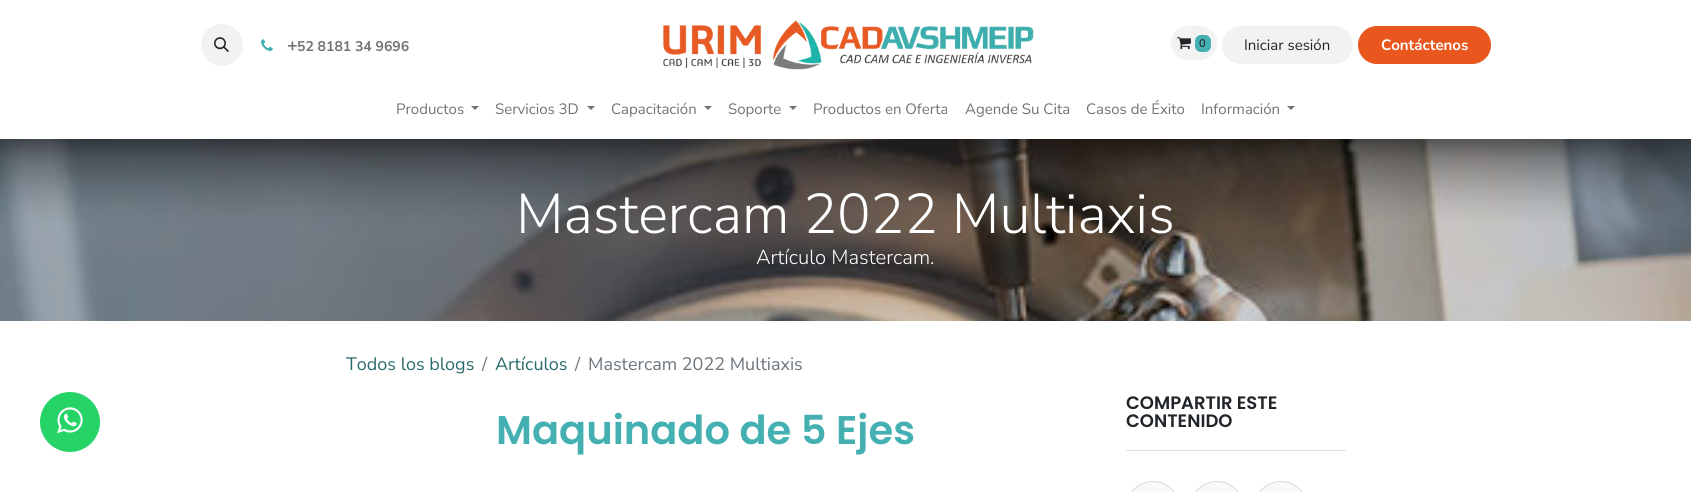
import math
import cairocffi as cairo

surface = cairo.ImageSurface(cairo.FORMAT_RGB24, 1691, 492)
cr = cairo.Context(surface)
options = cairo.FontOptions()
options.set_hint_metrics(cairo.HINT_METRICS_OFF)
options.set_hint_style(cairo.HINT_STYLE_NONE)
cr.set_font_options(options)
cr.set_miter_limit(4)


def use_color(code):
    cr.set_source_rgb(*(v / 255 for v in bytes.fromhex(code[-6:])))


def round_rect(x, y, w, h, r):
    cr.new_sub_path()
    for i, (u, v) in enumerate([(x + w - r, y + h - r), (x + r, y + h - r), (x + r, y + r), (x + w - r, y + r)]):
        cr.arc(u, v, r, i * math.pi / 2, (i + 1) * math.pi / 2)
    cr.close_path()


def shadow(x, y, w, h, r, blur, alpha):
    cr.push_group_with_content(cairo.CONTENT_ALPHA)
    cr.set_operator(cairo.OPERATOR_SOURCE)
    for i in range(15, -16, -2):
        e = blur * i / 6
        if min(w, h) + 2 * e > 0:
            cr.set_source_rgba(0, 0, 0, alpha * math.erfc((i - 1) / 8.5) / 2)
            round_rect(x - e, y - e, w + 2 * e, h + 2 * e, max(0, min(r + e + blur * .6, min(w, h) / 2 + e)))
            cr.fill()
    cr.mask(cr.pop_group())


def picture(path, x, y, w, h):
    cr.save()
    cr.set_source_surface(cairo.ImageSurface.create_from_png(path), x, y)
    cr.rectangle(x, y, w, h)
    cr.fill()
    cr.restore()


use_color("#ffffff")
cr.paint()
use_color("#25d366")
cr.arc(70, 422, 30, 0, 2 * math.pi)
cr.fill()
picture("img1.png", 57, 407, 26, 27)
picture("img6.png", 0, 139, 1691, 182)
cr.save()
cr.rectangle(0, 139, 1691, 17)
cr.clip()
use_color("#000000")
shadow(0, 8, 1691, 139, 0, 8, 0.15)
cr.restore()
use_color("#f2f2f2")
cr.arc(222, 45, 21, 0, 2 * math.pi)
cr.fill()
picture("img2.png", 214, 37, 15, 15)
picture("img3.png", 261, 39, 12, 12)
cr.select_font_face("Nunito Sans", cairo.FONT_SLANT_NORMAL, cairo.FONT_WEIGHT_BOLD)
cr.set_font_size(18)
use_color("#737373")
cr.move_to(287, 51)
cr.show_text("+")
cr.set_font_size(14)
cr.move_to(297, 51)
cr.show_text("52 8181 34 9696")
picture("img4.png", 663, 20, 371, 50)
use_color("#f2f2f2")
round_rect(1171, 26, 46, 34, 17)
cr.fill()
picture("img5.png", 1177, 37, 14, 13)
use_color("#45b0b2")
round_rect(1195, 35, 16, 17, 6)
cr.fill()
cr.select_font_face("Nunito Sans SemiBold")
cr.set_font_size(11)
use_color("#212529")
cr.move_to(1199, 47)
cr.show_text("0")
use_color("#f2f2f2")
round_rect(1222, 26, 131, 38, 19)
cr.fill()
cr.select_font_face("Nunito Sans")
cr.set_font_size(15)
use_color("#212529")
cr.move_to(1244, 50)
cr.show_text("Iniciar sesión")
use_color("#e9561e")
round_rect(1358.5, 26.5, 132, 37, 18.5)
cr.fill_preserve()
cr.set_line_width(1)
cr.stroke()
cr.select_font_face("Nunito Sans", cairo.FONT_SLANT_NORMAL, cairo.FONT_WEIGHT_BOLD)
use_color("#ffffff")
cr.move_to(1381, 50)
cr.show_text("Contáctenos")
cr.select_font_face("Nunito Sans")
use_color("#737373")
cr.move_to(396, 114)
cr.show_text("Productos")
cr.new_path()
cr.move_to(471, 106)
cr.line_to(479, 106)
cr.line_to(475, 110)
cr.close_path()
cr.fill()
cr.move_to(495, 114)
cr.show_text("Servicios 3D")
cr.new_path()
cr.move_to(587, 106)
cr.line_to(595, 106)
cr.line_to(591, 110)
cr.close_path()
cr.fill()
cr.move_to(611, 114)
cr.show_text("Capacitación")
cr.new_path()
cr.move_to(704, 106)
cr.line_to(712, 106)
cr.line_to(708, 110)
cr.close_path()
cr.fill()
cr.move_to(728, 114)
cr.show_text("Soporte")
cr.new_path()
cr.move_to(789, 106)
cr.line_to(797, 106)
cr.line_to(793, 110)
cr.close_path()
cr.fill()
cr.move_to(813, 114)
cr.show_text("Productos en Oferta")
cr.move_to(965, 114)
cr.show_text("Agende Su Cita")
cr.move_to(1086, 114)
cr.show_text("Casos de Éxito")
cr.move_to(1201, 114)
cr.show_text("Información")
cr.new_path()
cr.move_to(1287, 106)
cr.line_to(1295, 106)
cr.line_to(1291, 110)
cr.close_path()
cr.fill()
cr.select_font_face("Nunito Sans Light")
cr.set_font_size(56)
use_color("#ffffff")
cr.move_to(516, 233)
cr.show_text("Mastercam 2022 Multiaxis")
cr.set_font_size(20.25)
cr.move_to(756, 264)
cr.show_text("Artículo Mastercam.")
cr.select_font_face("Nunito Sans")
cr.set_font_size(18)
use_color("#2a6b6c")
cr.move_to(346, 370)
cr.show_text("Todos los blogs")
use_color("#6c757d")
cr.move_to(482, 370)
cr.show_text("/")
use_color("#2a6b6c")
cr.move_to(495, 370)
cr.show_text("Artículos")
use_color("#6c757d")
cr.move_to(575, 370)
cr.show_text("/")
cr.move_to(588, 370)
cr.show_text("Mastercam 2022 Multiaxis")
cr.select_font_face("Poppins SemiBold")
cr.set_font_size(40)
use_color("#45b0b2")
cr.move_to(496, 444)
cr.show_text("Maquinado de 5 Ejes")
use_color("#dededf")
cr.rectangle(1126, 450, 220, 1)
cr.fill()
cr.set_font_size(18)
use_color("#212529")
cr.move_to(1126, 409)
cr.show_text("COMPARTIR ESTE")
cr.move_to(1126, 427)
cr.show_text("CONTENIDO")
use_color("#f8f9fa")
cr.new_path()
cr.move_to(1153, 481)
cr.curve_to(1168, 481, 1180, 493, 1180, 508)
cr.line_to(1180, 492)
cr.line_to(1126, 492)
cr.line_to(1126, 508)
cr.curve_to(1126, 493, 1138, 481, 1153, 481)
cr.close_path()
cr.fill()
round_rect(1126.5, 481.5, 53, 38, 26.5)
cr.set_source_rgba(0.129, 0.145, 0.161, 0.15)
cr.stroke()
use_color("#f8f9fa")
cr.new_path()
cr.move_to(1217, 481)
cr.curve_to(1232, 481, 1244, 493, 1244, 508)
cr.line_to(1244, 492)
cr.line_to(1190, 492)
cr.line_to(1190, 508)
cr.curve_to(1190, 493, 1202, 481, 1217, 481)
cr.close_path()
cr.fill()
round_rect(1190.5, 481.5, 53, 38, 26.5)
cr.set_source_rgba(0.129, 0.145, 0.161, 0.15)
cr.stroke()
use_color("#f8f9fa")
cr.new_path()
cr.move_to(1281, 481)
cr.curve_to(1296, 481, 1308, 493, 1308, 508)
cr.line_to(1308, 492)
cr.line_to(1254, 492)
cr.line_to(1254, 508)
cr.curve_to(1254, 493, 1266, 481, 1281, 481)
cr.close_path()
cr.fill()
round_rect(1254.5, 481.5, 53, 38, 26.5)
cr.set_source_rgba(0.129, 0.145, 0.161, 0.15)
cr.stroke()
surface.write_to_png("result.png")
